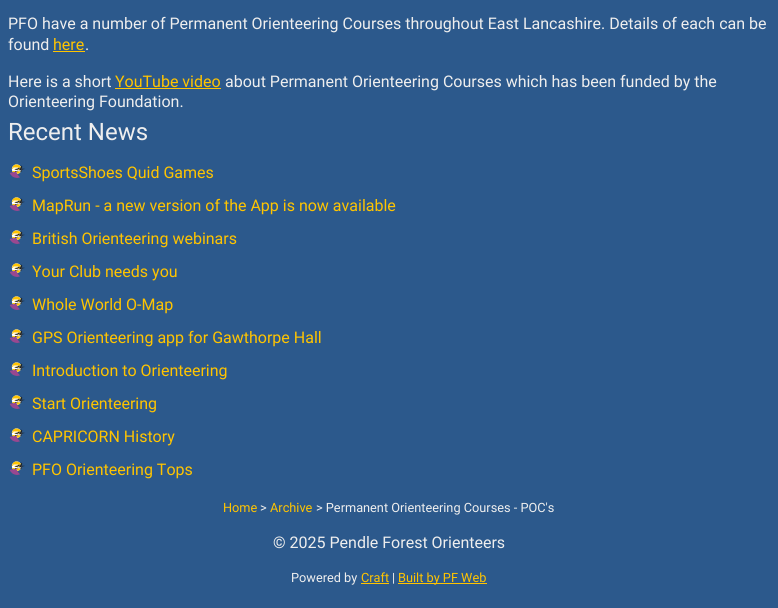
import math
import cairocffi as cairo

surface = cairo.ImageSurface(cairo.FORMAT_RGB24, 778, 608)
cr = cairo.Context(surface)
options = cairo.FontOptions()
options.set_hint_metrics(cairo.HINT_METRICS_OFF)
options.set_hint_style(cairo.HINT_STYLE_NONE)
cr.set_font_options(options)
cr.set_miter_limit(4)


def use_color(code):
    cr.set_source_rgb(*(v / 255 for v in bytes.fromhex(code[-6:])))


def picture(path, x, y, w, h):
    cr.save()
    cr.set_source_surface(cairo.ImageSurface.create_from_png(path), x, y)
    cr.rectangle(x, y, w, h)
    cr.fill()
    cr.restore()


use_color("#2c598c")
cr.paint()
cr.select_font_face("Roboto")
cr.set_font_size(16)
use_color("#eeeeee")
cr.move_to(8, 29)
cr.show_text("PFO have a number of Permanent Orienteering Courses throughout East Lancashire. Details of each can be")
cr.move_to(8, 50)
cr.show_text("found")
use_color("#ffc400")
cr.move_to(53, 50)
cr.show_text("here")
cr.rectangle(53, 51, 32, 1)
cr.fill()
use_color("#eeeeee")
cr.move_to(85, 50)
cr.show_text(".")
cr.move_to(8, 87)
cr.show_text("Here is a short")
use_color("#ffc400")
cr.move_to(115, 87)
cr.show_text("YouTube video")
cr.rectangle(115, 88, 106, 1)
cr.fill()
use_color("#eeeeee")
cr.move_to(225, 87)
cr.show_text("about Permanent Orienteering Courses which has been funded by the")
cr.move_to(8, 107)
cr.show_text("Orienteering Foundation.")
cr.set_font_size(24)
cr.move_to(8, 140)
cr.show_text("Recent News")
picture("img1.png", 9, 164, 16, 14)
cr.set_font_size(16)
use_color("#ffc400")
cr.move_to(32, 178)
cr.show_text("SportsShoes Quid Games")
picture("img1.png", 9, 197, 16, 14)
cr.move_to(32, 211)
cr.show_text("MapRun - a new version of the App is now available")
picture("img1.png", 9, 230, 16, 14)
cr.move_to(32, 244)
cr.show_text("British Orienteering webinars")
picture("img1.png", 9, 263, 16, 14)
cr.move_to(32, 277)
cr.show_text("Your Club needs you")
picture("img1.png", 9, 296, 16, 14)
cr.move_to(32, 310)
cr.show_text("Whole World O-Map")
picture("img2.png", 9, 329, 16, 14)
cr.move_to(32, 343)
cr.show_text("GPS Orienteering app for Gawthorpe Hall")
picture("img1.png", 9, 362, 16, 14)
cr.move_to(32, 376)
cr.show_text("Introduction to Orienteering")
picture("img1.png", 9, 395, 16, 14)
cr.move_to(32, 409)
cr.show_text("Start Orienteering")
picture("img1.png", 9, 428, 16, 14)
cr.move_to(32, 442)
cr.show_text("CAPRICORN History")
picture("img1.png", 9, 461, 16, 14)
cr.move_to(32, 475)
cr.show_text("PFO Orienteering Tops")
cr.set_font_size(12.75)
cr.move_to(223, 512)
cr.show_text("Home")
use_color("#eeeeee")
cr.move_to(260, 512)
cr.show_text(">")
use_color("#ffc400")
cr.move_to(270, 512)
cr.show_text("Archive")
use_color("#eeeeee")
cr.move_to(316, 512)
cr.show_text("> Permanent Orienteering Courses - POC's")
cr.set_font_size(16)
cr.move_to(273, 548)
cr.show_text("© 2025 Pendle Forest Orienteers")
cr.set_font_size(12.75)
cr.move_to(291, 582)
cr.show_text("Powered by")
use_color("#ffc400")
cr.move_to(361, 582)
cr.show_text("Craft")
cr.rectangle(361, 583, 28, 1)
cr.fill()
use_color("#eeeeee")
cr.move_to(392, 582)
cr.show_text("|")
use_color("#ffc400")
cr.rectangle(398, 583, 89, 1)
cr.fill()
cr.move_to(398, 582)
cr.show_text("Built by PF Web")
surface.write_to_png("result.png")
